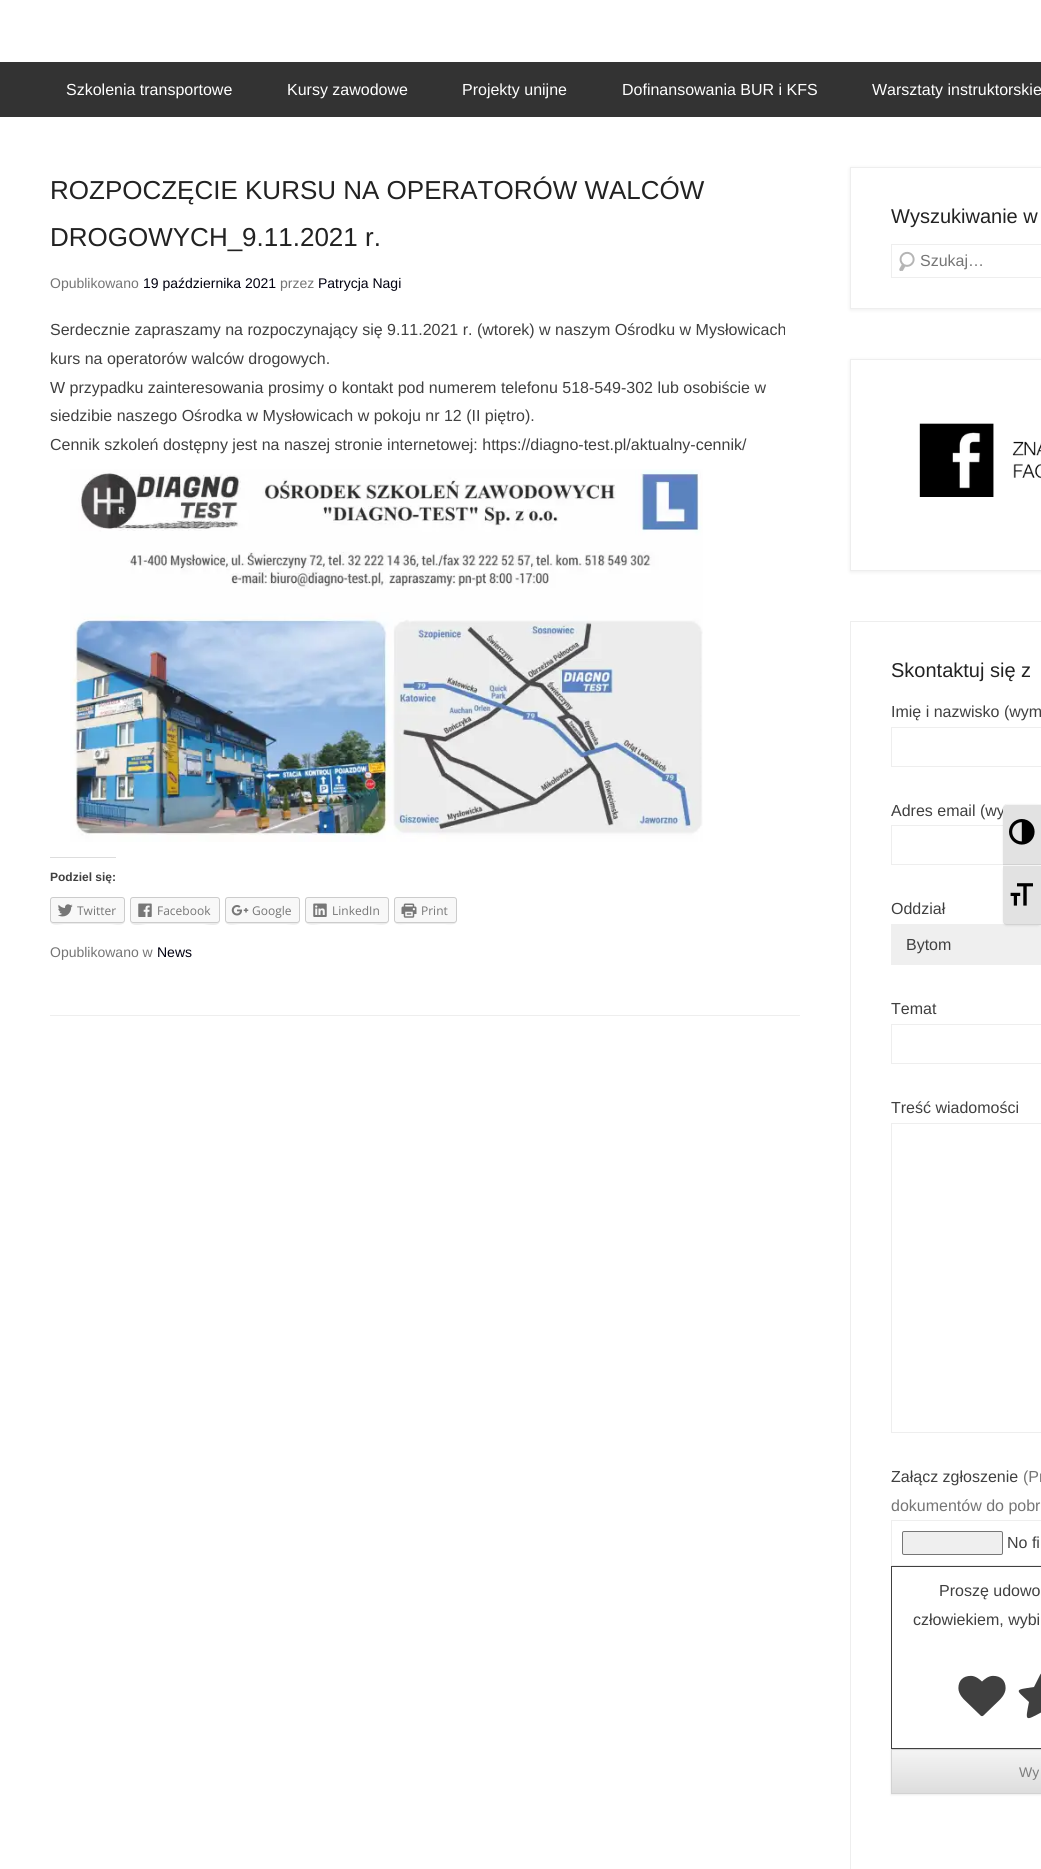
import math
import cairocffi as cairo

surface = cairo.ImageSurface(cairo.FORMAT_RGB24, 1041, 1869)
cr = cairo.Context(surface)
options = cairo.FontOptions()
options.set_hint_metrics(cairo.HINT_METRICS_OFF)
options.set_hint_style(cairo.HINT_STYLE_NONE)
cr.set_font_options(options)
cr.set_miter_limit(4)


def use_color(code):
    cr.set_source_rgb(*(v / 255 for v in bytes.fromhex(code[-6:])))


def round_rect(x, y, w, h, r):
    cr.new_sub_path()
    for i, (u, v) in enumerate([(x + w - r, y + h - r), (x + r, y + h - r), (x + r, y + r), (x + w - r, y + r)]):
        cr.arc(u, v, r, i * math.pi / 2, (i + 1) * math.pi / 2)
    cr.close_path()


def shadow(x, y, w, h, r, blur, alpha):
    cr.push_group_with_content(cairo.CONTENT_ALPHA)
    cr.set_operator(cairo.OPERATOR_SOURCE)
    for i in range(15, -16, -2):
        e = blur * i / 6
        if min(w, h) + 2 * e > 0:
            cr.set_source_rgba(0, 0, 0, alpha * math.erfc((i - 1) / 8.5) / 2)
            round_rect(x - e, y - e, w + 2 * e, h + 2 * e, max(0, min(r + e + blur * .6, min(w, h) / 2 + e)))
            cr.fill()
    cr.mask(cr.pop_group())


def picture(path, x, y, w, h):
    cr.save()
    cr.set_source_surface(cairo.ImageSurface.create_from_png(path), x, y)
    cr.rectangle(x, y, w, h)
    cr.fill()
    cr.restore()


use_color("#ffffff")
cr.paint()
use_color("#333333")
cr.rectangle(0, 62, 1041, 55)
cr.fill()
cr.select_font_face("Liberation Sans")
cr.set_font_size(16)
use_color("#ffffff")
cr.move_to(66, 95)
cr.show_text("Szkolenia transportowe")
cr.move_to(287, 95)
cr.show_text("Kursy zawodowe")
cr.move_to(462, 95)
cr.show_text("Projekty unijne")
cr.move_to(622, 95)
cr.show_text("Dofinansowania BUR i KFS")
cr.move_to(872, 95)
cr.show_text("Warsztaty instruktorskie")
use_color("#eeeeee")
cr.rectangle(50, 1015, 750, 1)
cr.fill()
cr.set_font_size(26)
use_color("#222222")
cr.move_to(50, 199)
cr.show_text("ROZPOCZĘCIE KURSU NA OPERATORÓW WALCÓW")
cr.move_to(50, 246)
cr.show_text("DROGOWYCH_9.11.2021 r.")
cr.set_font_size(14)
use_color("#757575")
cr.move_to(50, 288)
cr.show_text("Opublikowano")
use_color("#00000f")
cr.move_to(143, 288)
cr.show_text("19 października 2021")
use_color("#757575")
cr.move_to(280, 288)
cr.show_text("przez")
use_color("#00000f")
cr.move_to(318, 288)
cr.show_text("Patrycja Nagi")
cr.set_font_size(16)
use_color("#404040")
cr.move_to(50, 335)
cr.show_text("Serdecznie zapraszamy na rozpoczynający się 9.11.2021 r. (wtorek) w naszym Ośrodku w Mysłowicach")
cr.move_to(50, 364)
cr.show_text("kurs na operatorów walców drogowych.")
cr.move_to(50, 393)
cr.show_text("W przypadku zainteresowania prosimy o kontakt pod numerem telefonu 518-549-302 lub osobiście w")
cr.move_to(50, 421)
cr.show_text("siedzibie naszego Ośrodka w Mysłowicach w pokoju nr 12 (II piętro).")
cr.move_to(50, 450)
cr.show_text("Cennik szkoleń dostępny jest na naszej stronie internetowej: https://diagno-test.pl/aktualny-cennik/")
picture("img1.png", 70, 469, 633, 373)
use_color("#dddddd")
cr.rectangle(50, 857, 66, 1)
cr.fill()
cr.select_font_face("Liberation Sans", cairo.FONT_SLANT_NORMAL, cairo.FONT_WEIGHT_BOLD)
cr.set_font_size(12)
use_color("#404040")
cr.move_to(50, 881)
cr.show_text("Podziel się:")
use_color("#ebebeb")
cr.new_path()
cr.move_to(50, 920)
cr.curve_to(50, 927, 60, 924, 64, 924)
cr.line_to(110, 924)
cr.curve_to(115, 924, 125, 927, 125, 920)
cr.curve_to(125, 922, 124, 923, 122, 923)
cr.line_to(53, 923)
cr.curve_to(51, 923, 50, 922, 50, 920)
cr.close_path()
cr.fill()
use_color("#f8f8f8")
round_rect(50.5, 897.5, 74, 25, 2.5)
cr.fill_preserve()
use_color("#cccccc")
cr.set_line_width(1)
cr.stroke()
picture("img2.png", 58, 904, 15, 13)
cr.select_font_face("Open Sans")
use_color("#757575")
cr.move_to(77, 915)
cr.show_text("Twitter")
use_color("#ebebeb")
cr.new_path()
cr.move_to(130, 920)
cr.curve_to(130, 928, 143, 924, 147, 924)
cr.line_to(203, 924)
cr.curve_to(207, 924, 220, 928, 220, 920)
cr.curve_to(220, 922, 219, 923, 217, 923)
cr.line_to(133, 923)
cr.curve_to(131, 923, 130, 922, 130, 920)
cr.close_path()
cr.fill()
use_color("#f8f8f8")
round_rect(130.5, 897.5, 89, 25, 2.5)
cr.fill_preserve()
use_color("#cccccc")
cr.stroke()
picture("img3.png", 138, 903, 14, 14)
use_color("#757575")
cr.move_to(157, 915)
cr.show_text("Facebook")
use_color("#ebebeb")
cr.new_path()
cr.move_to(225, 920)
cr.curve_to(225, 927, 235, 924, 240, 924)
cr.line_to(286, 924)
cr.curve_to(290, 924, 300, 927, 300, 920)
cr.curve_to(300, 922, 299, 923, 297, 923)
cr.line_to(228, 923)
cr.curve_to(226, 923, 225, 922, 225, 920)
cr.close_path()
cr.fill()
use_color("#f8f8f8")
round_rect(225.5, 897.5, 74, 25, 2.5)
cr.fill_preserve()
use_color("#cccccc")
cr.stroke()
picture("img4.png", 231, 905, 18, 11)
use_color("#757575")
cr.move_to(252, 915)
cr.show_text("Google")
use_color("#ebebeb")
cr.new_path()
cr.move_to(305, 920)
cr.curve_to(305, 927, 317, 924, 321, 924)
cr.line_to(373, 924)
cr.curve_to(377, 924, 389, 927, 389, 920)
cr.curve_to(389, 922, 388, 923, 386, 923)
cr.line_to(308, 923)
cr.curve_to(306, 923, 305, 922, 305, 920)
cr.close_path()
cr.fill()
use_color("#f8f8f8")
round_rect(305.5, 897.5, 83, 25, 2.5)
cr.fill_preserve()
use_color("#cccccc")
cr.stroke()
picture("img5.png", 313, 903, 14, 14)
use_color("#757575")
cr.move_to(332, 915)
cr.show_text("LinkedIn")
use_color("#ebebeb")
cr.new_path()
cr.move_to(394, 920)
cr.curve_to(394, 926, 402, 924, 406, 924)
cr.line_to(444, 924)
cr.curve_to(449, 924, 457, 926, 457, 920)
cr.curve_to(457, 922, 456, 923, 454, 923)
cr.line_to(397, 923)
cr.curve_to(395, 923, 394, 922, 394, 920)
cr.close_path()
cr.fill()
use_color("#f8f8f8")
round_rect(394.5, 897.5, 62, 25, 2.5)
cr.fill_preserve()
use_color("#cccccc")
cr.stroke()
picture("img6.png", 401, 903, 16, 15)
use_color("#757575")
cr.move_to(421, 915)
cr.show_text("Print")
cr.select_font_face("Liberation Sans")
cr.set_font_size(14)
cr.move_to(50, 957)
cr.show_text("Opublikowano w")
use_color("#00000f")
cr.move_to(157, 957)
cr.show_text("News")
cr.save()
cr.set_fill_rule(cairo.FILL_RULE_EVEN_ODD)
cr.new_path()
cr.move_to(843, 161)
cr.line_to(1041, 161)
cr.line_to(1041, 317)
cr.line_to(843, 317)
cr.close_path()
cr.move_to(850, 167)
cr.line_to(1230, 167)
cr.line_to(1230, 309)
cr.line_to(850, 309)
cr.close_path()
cr.clip()
use_color("#000000")
shadow(850, 168, 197, 142, 0, 2, 0.07)
cr.restore()
cr.rectangle(850.5, 167.5, 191, 141)
use_color("#eeeeee")
cr.stroke()
cr.set_font_size(20)
use_color("#222222")
cr.move_to(891, 223)
cr.show_text("Wyszukiwanie w")
picture("img7.png", 899, 251, 16, 20)
cr.rectangle(891.5, 244.5, 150, 33)
use_color("#eeeeee")
cr.stroke()
cr.set_font_size(16)
use_color("#757575")
cr.move_to(920, 266)
cr.show_text("Szukaj…")
cr.save()
cr.set_fill_rule(cairo.FILL_RULE_EVEN_ODD)
cr.new_path()
cr.move_to(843, 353)
cr.line_to(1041, 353)
cr.line_to(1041, 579)
cr.line_to(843, 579)
cr.close_path()
cr.move_to(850, 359)
cr.line_to(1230, 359)
cr.line_to(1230, 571)
cr.line_to(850, 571)
cr.close_path()
cr.clip()
use_color("#000000")
shadow(850, 360, 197, 212, 0, 2, 0.07)
cr.restore()
cr.rectangle(850.5, 359.5, 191, 211)
use_color("#eeeeee")
cr.stroke()
picture("img8.png", 919, 423, 122, 74)
cr.rectangle(850.5, 621.5, 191, 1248)
cr.stroke()
cr.set_font_size(20)
use_color("#222222")
cr.move_to(891, 677)
cr.show_text("Skontaktuj się z")
cr.set_font_size(16)
use_color("#404040")
cr.move_to(891, 717)
cr.show_text("Imię i nazwisko (wym")
cr.rectangle(891.5, 727.5, 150, 39)
use_color("#eeeeee")
cr.stroke()
use_color("#404040")
cr.move_to(891, 816)
cr.show_text("Adres email (wy")
cr.rectangle(891.5, 825.5, 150, 39)
use_color("#eeeeee")
cr.stroke()
use_color("#404040")
cr.move_to(891, 914)
cr.show_text("Oddział")
use_color("#efefef")
cr.rectangle(891, 924, 150, 41)
cr.fill()
use_color("#404040")
cr.move_to(906, 950)
cr.show_text("Bytom")
cr.move_to(891, 1014)
cr.show_text("Temat")
cr.rectangle(891.5, 1024.5, 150, 39)
use_color("#eeeeee")
cr.stroke()
use_color("#404040")
cr.move_to(891, 1113)
cr.show_text("Treść wiadomości")
cr.rectangle(891.5, 1123.5, 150, 309)
use_color("#eeeeee")
cr.stroke()
use_color("#404040")
cr.move_to(891, 1482)
cr.show_text("Załącz zgłoszenie")
use_color("#757575")
cr.move_to(1023, 1482)
cr.show_text("(Pr")
cr.move_to(891, 1511)
cr.show_text("dokumentów do pobr")
cr.rectangle(891.5, 1520.5, 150, 45)
use_color("#eeeeee")
cr.stroke()
use_color("#efefef")
round_rect(902.5, 1531.5, 100, 23, 1.5)
cr.fill_preserve()
use_color("#767676")
cr.stroke()
use_color("#404040")
cr.move_to(1007, 1548)
cr.show_text("No fi")
use_color("#404040")
shadow(891, 1750, 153, 45, 0, 1, 0.1)
cr.rectangle(891.5, 1566.5, 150, 182)
use_color("#404040")
cr.stroke()
cr.move_to(939, 1596)
cr.show_text("Proszę udowo")
cr.move_to(913, 1625)
cr.show_text("człowiekiem, wybi")
picture("img9.png", 958, 1675, 48, 42)
cr.new_path()
cr.move_to(1040, 1675)
cr.line_to(1034, 1687)
cr.curve_to(1014, 1690, 1015, 1689, 1029, 1702)
cr.curve_to(1025, 1722, 1025, 1721, 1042, 1712)
cr.curve_to(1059, 1721, 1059, 1722, 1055, 1702)
cr.curve_to(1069, 1689, 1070, 1690, 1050, 1687)
cr.curve_to(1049, 1685, 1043, 1668, 1040, 1675)
cr.close_path()
cr.fill()
gradient = cairo.LinearGradient(1037, 1750, 1037, 1793)
gradient.add_color_stop_rgba(0, 0.957, 0.957, 0.957, 1)
gradient.add_color_stop_rgba(1, 0.867, 0.867, 0.867, 1)
cr.set_source(gradient)
cr.rectangle(892, 1751, 149, 42)
cr.fill()
cr.rectangle(891.5, 1749.5, 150, 44)
use_color("#d2d2d2")
cr.stroke()
cr.set_font_size(14)
use_color("#7c7c7c")
cr.move_to(1019, 1777)
cr.show_text("Wy")
use_color("#404040")
shadow(1003, 805, 38, 61, 4, 1, 0.1)
use_color("#e2e2e2")
cr.new_path()
cr.move_to(1007, 804)
cr.line_to(1041, 804)
cr.line_to(1041, 865)
cr.line_to(1003, 865)
cr.line_to(1003, 808)
cr.curve_to(1003, 806, 1005, 804, 1007, 804)
cr.close_path()
cr.fill()
use_color("#f5f5f5")
cr.new_path()
cr.move_to(1007, 805)
cr.line_to(1041, 805)
cr.line_to(1041, 804)
cr.line_to(1007, 804)
cr.curve_to(1005, 804, 1003, 806, 1003, 808)
cr.curve_to(1003, 806, 1005, 805, 1007, 805)
cr.close_path()
cr.fill()
use_color("#d2d2d2")
cr.rectangle(1003, 864, 38, 1)
cr.fill()
picture("img10.png", 1009, 819, 26, 26)
use_color("#404040")
shadow(1003, 866, 38, 60, 4, 1, 0.1)
use_color("#e2e2e2")
cr.new_path()
cr.move_to(1003, 865)
cr.line_to(1041, 865)
cr.line_to(1041, 925)
cr.line_to(1007, 925)
cr.curve_to(1005, 925, 1003, 923, 1003, 921)
cr.close_path()
cr.fill()
use_color("#f5f5f5")
cr.rectangle(1003, 865, 38, 1)
cr.fill()
use_color("#d2d2d2")
cr.new_path()
cr.move_to(1041, 925)
cr.line_to(1041, 924)
cr.line_to(1007, 924)
cr.curve_to(1005, 924, 1003, 923, 1003, 921)
cr.curve_to(1003, 923, 1005, 925, 1007, 925)
cr.close_path()
cr.fill()
picture("img11.png", 1010, 883, 23, 23)
surface.write_to_png("result.png")
